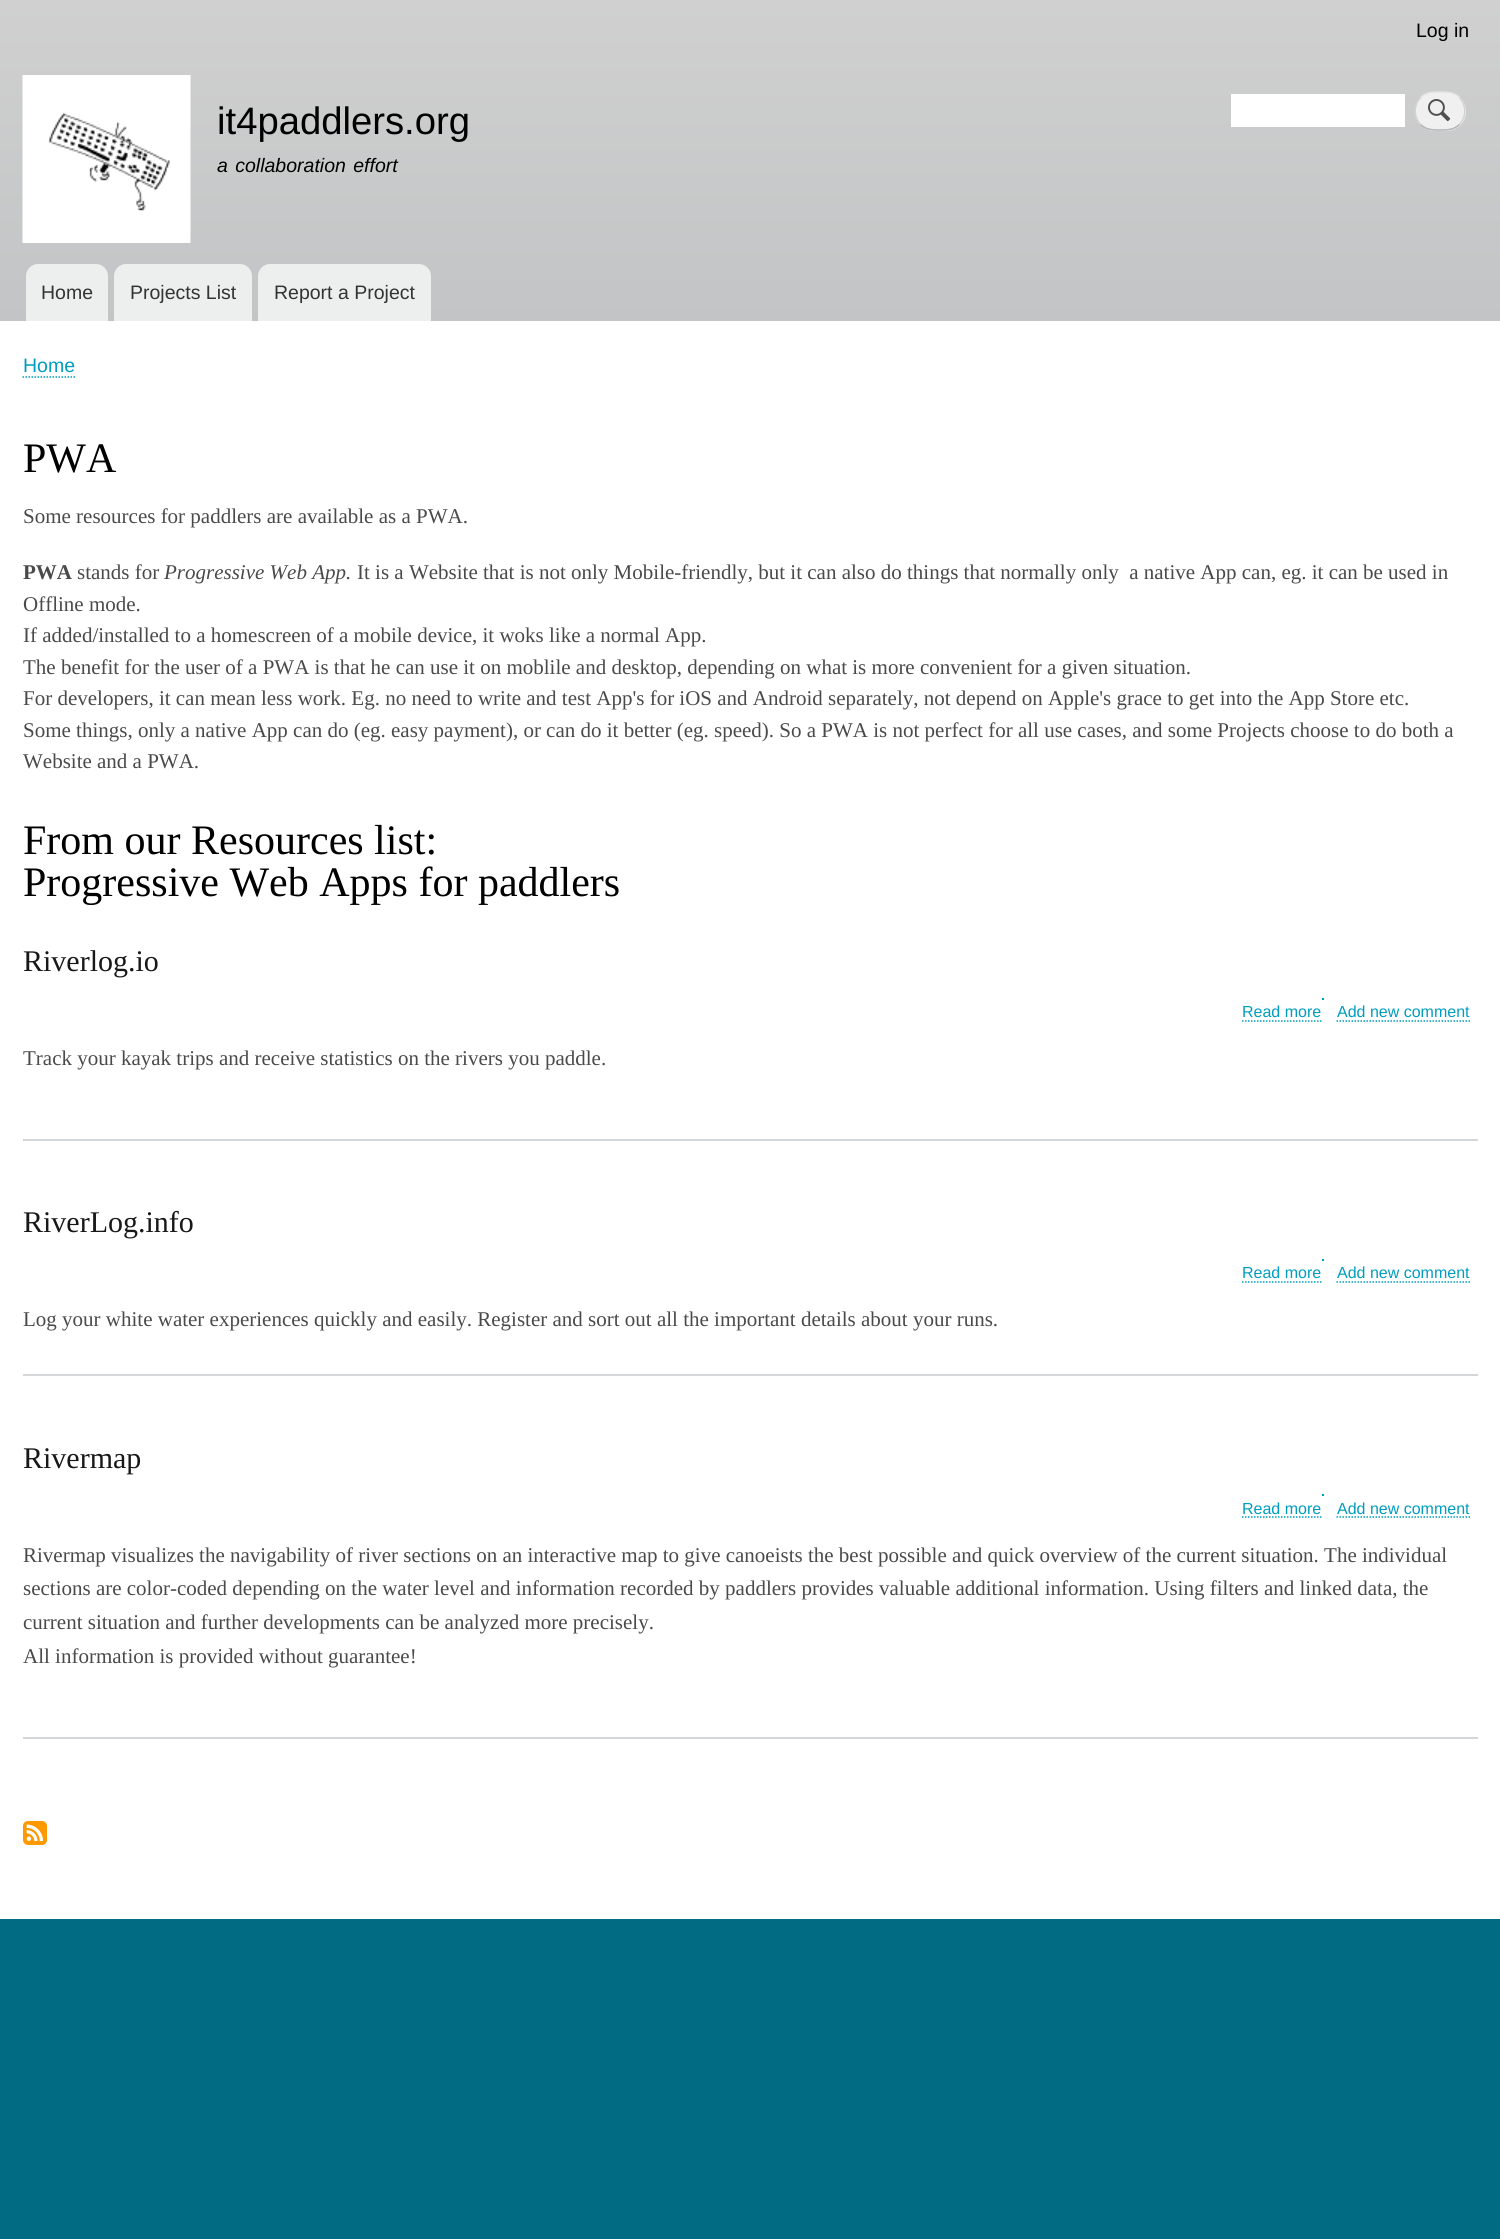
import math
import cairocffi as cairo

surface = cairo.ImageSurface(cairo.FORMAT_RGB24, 1500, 2239)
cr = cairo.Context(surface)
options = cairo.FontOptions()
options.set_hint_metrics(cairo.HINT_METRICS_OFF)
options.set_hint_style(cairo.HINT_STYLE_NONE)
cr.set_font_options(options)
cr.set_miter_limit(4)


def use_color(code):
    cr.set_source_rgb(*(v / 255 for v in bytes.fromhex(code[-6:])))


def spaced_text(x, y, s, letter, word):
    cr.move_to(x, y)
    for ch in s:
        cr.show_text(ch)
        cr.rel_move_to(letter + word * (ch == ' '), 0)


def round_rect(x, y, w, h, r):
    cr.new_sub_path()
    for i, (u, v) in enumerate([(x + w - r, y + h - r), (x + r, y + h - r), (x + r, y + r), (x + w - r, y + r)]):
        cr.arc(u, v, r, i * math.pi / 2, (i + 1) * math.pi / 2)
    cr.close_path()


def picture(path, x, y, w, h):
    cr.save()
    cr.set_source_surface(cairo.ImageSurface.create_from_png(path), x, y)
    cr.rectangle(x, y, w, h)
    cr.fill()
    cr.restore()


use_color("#016b83")
cr.paint()
use_color("#ffffff")
cr.rectangle(0, 321, 1500, 1598)
cr.fill()
gradient = cairo.LinearGradient(750, 0, 750, 321)
gradient.add_color_stop_rgba(0, 0.816, 0.816, 0.816, 1)
gradient.add_color_stop_rgba(1, 0.761, 0.769, 0.773, 1)
cr.set_source(gradient)
cr.rectangle(0, 0, 1500, 321)
cr.fill()
cr.select_font_face("Liberation Sans")
cr.set_font_size(19.5)
use_color("#000000")
cr.move_to(1416, 37)
cr.show_text("Log in")
picture("img1.png", 22, 75, 169, 168)
cr.set_font_size(38.25)
cr.move_to(217, 134)
cr.show_text("it4paddlers.org")
cr.select_font_face("Liberation Sans", cairo.FONT_SLANT_ITALIC)
cr.set_font_size(19.5)
spaced_text(217, 172, "a collaboration effort", 0, 2)
use_color("#ffffff")
cr.rectangle(1231, 94, 174, 33)
cr.fill()
use_color("#f0f0f0")
round_rect(1415, 92, 51, 39, 19.5)
cr.fill()
picture("img2.png", 1428, 99, 23, 23)
cr.new_path()
cr.move_to(1420.5, 97.5)
cr.curve_to(1426.5, 92, 1432.5, 92, 1440, 92)
cr.curve_to(1447.5, 92, 1453.5, 92, 1459.5, 97.5)
use_color("#e4e4e4")
cr.set_line_width(1.5)
cr.stroke()
cr.new_path()
cr.move_to(1459.5, 97.5)
cr.curve_to(1466.5, 105, 1466.5, 117, 1459.5, 124.5)
use_color("#d2d2d2")
cr.stroke()
cr.new_path()
cr.move_to(1459.5, 124.5)
cr.curve_to(1453.5, 130, 1447.5, 130, 1440, 130)
cr.curve_to(1432.5, 130, 1426.5, 130, 1420.5, 124.5)
use_color("#b4b4b4")
cr.stroke()
cr.new_path()
cr.move_to(1420.5, 124.5)
cr.curve_to(1413.5, 117, 1413.5, 105, 1420.5, 97.5)
use_color("#d2d2d2")
cr.stroke()
use_color("#edeeee")
cr.new_path()
cr.move_to(38, 264)
cr.line_to(96, 264)
cr.curve_to(102.5, 264, 108, 269.5, 108, 276)
cr.line_to(108, 321)
cr.line_to(26, 321)
cr.line_to(26, 276)
cr.curve_to(26, 269.5, 31.5, 264, 38, 264)
cr.close_path()
cr.fill()
cr.select_font_face("Liberation Sans")
use_color("#333333")
cr.move_to(41, 299)
cr.show_text("Home")
use_color("#edeeee")
cr.new_path()
cr.move_to(126, 264)
cr.line_to(240, 264)
cr.curve_to(246.5, 264, 252, 269.5, 252, 276)
cr.line_to(252, 321)
cr.line_to(114, 321)
cr.line_to(114, 276)
cr.curve_to(114, 269.5, 119.5, 264, 126, 264)
cr.close_path()
cr.fill()
use_color("#333333")
cr.move_to(130, 299)
cr.show_text("Projects List")
use_color("#edeeee")
cr.new_path()
cr.move_to(270, 264)
cr.line_to(419, 264)
cr.curve_to(425.5, 264, 431, 269.5, 431, 276)
cr.line_to(431, 321)
cr.line_to(258, 321)
cr.line_to(258, 276)
cr.curve_to(258, 269.5, 263.5, 264, 270, 264)
cr.close_path()
cr.fill()
use_color("#333333")
cr.move_to(274, 299)
cr.show_text("Report a Project")
use_color("#019dbf")
cr.move_to(23, 372)
cr.show_text("Home")
cr.new_path()
cr.move_to(22.5, 377)
cr.line_to(75, 377)
cr.set_dash([1.5, 1.5])
cr.stroke()
cr.select_font_face("Liberation Serif")
cr.set_font_size(42)
use_color("#000000")
cr.move_to(23, 472)
cr.show_text("PWA")
cr.set_font_size(21)
use_color("#4a4a4a")
cr.move_to(23, 523)
cr.show_text("Some resources for paddlers are available as a PWA.")
cr.select_font_face("Liberation Serif", cairo.FONT_SLANT_NORMAL, cairo.FONT_WEIGHT_BOLD)
cr.move_to(23, 579)
cr.show_text("PWA")
cr.select_font_face("Liberation Serif")
cr.move_to(77, 579)
cr.show_text("stands for")
cr.select_font_face("Liberation Serif", cairo.FONT_SLANT_ITALIC)
cr.move_to(164, 579)
cr.show_text("Progressive Web App.")
cr.select_font_face("Liberation Serif")
cr.move_to(357, 579)
cr.show_text("It is a Website that is not only Mobile-friendly, but it can also do things that normally only  a native App can, eg. it can be used in")
cr.move_to(23, 611)
cr.show_text("Offline mode.")
cr.move_to(23, 642)
cr.show_text("If added/installed to a homescreen of a mobile device, it woks like a normal App.")
cr.move_to(23, 674)
cr.show_text("The benefit for the user of a PWA is that he can use it on moblile and desktop, depending on what is more convenient for a given situation.")
cr.move_to(23, 705)
cr.show_text("For developers, it can mean less work. Eg. no need to write and test App's for iOS and Android separately, not depend on Apple's grace to get into the App Store etc.")
cr.move_to(23, 737)
cr.show_text("Some things, only a native App can do (eg. easy payment), or can do it better (eg. speed). So a PWA is not perfect for all use cases, and some Projects choose to do both a")
cr.move_to(23, 768)
cr.show_text("Website and a PWA.")
cr.set_font_size(42)
use_color("#000000")
cr.move_to(23, 854)
cr.show_text("From our Resources list:")
cr.move_to(23, 896)
cr.show_text("Progressive Web Apps for paddlers")
use_color("#d3d7d9")
cr.rectangle(23, 1139, 1455, 2)
cr.fill()
cr.set_font_size(30)
use_color("#181818")
cr.move_to(23, 971)
cr.show_text("Riverlog.io")
cr.select_font_face("Liberation Sans")
cr.set_font_size(16)
use_color("#019dbf")
cr.move_to(1242, 1017)
cr.show_text("Read more")
cr.new_path()
cr.move_to(1242, 1021)
cr.line_to(1321.5, 1021)
cr.stroke()
cr.rectangle(1322, 998, 2, 2)
cr.fill()
cr.move_to(1337, 1017)
cr.show_text("Add new comment")
cr.new_path()
cr.move_to(1336.5, 1021)
cr.line_to(1470, 1021)
cr.stroke()
cr.select_font_face("Liberation Serif")
cr.set_font_size(21)
use_color("#4a4a4a")
cr.move_to(23, 1065)
cr.show_text("Track your kayak trips and receive statistics on the rivers you paddle.")
use_color("#d3d7d9")
cr.rectangle(23, 1374, 1455, 2)
cr.fill()
cr.set_font_size(30)
use_color("#181818")
cr.move_to(23, 1232)
cr.show_text("RiverLog.info")
cr.select_font_face("Liberation Sans")
cr.set_font_size(16)
use_color("#019dbf")
cr.move_to(1242, 1278)
cr.show_text("Read more")
cr.new_path()
cr.move_to(1242, 1282)
cr.line_to(1321.5, 1282)
cr.stroke()
cr.rectangle(1322, 1259, 2, 2)
cr.fill()
cr.move_to(1337, 1278)
cr.show_text("Add new comment")
cr.new_path()
cr.move_to(1336.5, 1282)
cr.line_to(1470, 1282)
cr.stroke()
cr.select_font_face("Liberation Serif")
cr.set_font_size(21)
use_color("#4a4a4a")
cr.move_to(23, 1326)
cr.show_text("Log your white water experiences quickly and easily. Register and sort out all the important details about your runs.")
use_color("#d3d7d9")
cr.rectangle(23, 1737, 1455, 2)
cr.fill()
cr.set_font_size(30)
use_color("#181818")
cr.move_to(23, 1468)
cr.show_text("Rivermap")
cr.select_font_face("Liberation Sans")
cr.set_font_size(16)
use_color("#019dbf")
cr.move_to(1242, 1514)
cr.show_text("Read more")
cr.new_path()
cr.move_to(1242, 1517)
cr.line_to(1321.5, 1517)
cr.stroke()
cr.rectangle(1322, 1494, 2, 2)
cr.fill()
cr.move_to(1337, 1514)
cr.show_text("Add new comment")
cr.new_path()
cr.move_to(1336.5, 1517)
cr.line_to(1470, 1517)
cr.stroke()
cr.select_font_face("Liberation Serif")
cr.set_font_size(21)
use_color("#4a4a4a")
cr.move_to(23, 1562)
cr.show_text("Rivermap visualizes the navigability of river sections on an interactive map to give canoeists the best possible and quick overview of the current situation. The individual")
cr.move_to(23, 1595)
cr.show_text("sections are color-coded depending on the water level and information recorded by paddlers provides valuable additional information. Using filters and linked data, the")
cr.move_to(23, 1629)
cr.show_text("current situation and further developments can be analyzed more precisely.")
cr.move_to(23, 1663)
cr.show_text("All information is provided without guarantee!")
picture("img3.png", 23, 1821, 24, 24)
surface.write_to_png("result.png")
